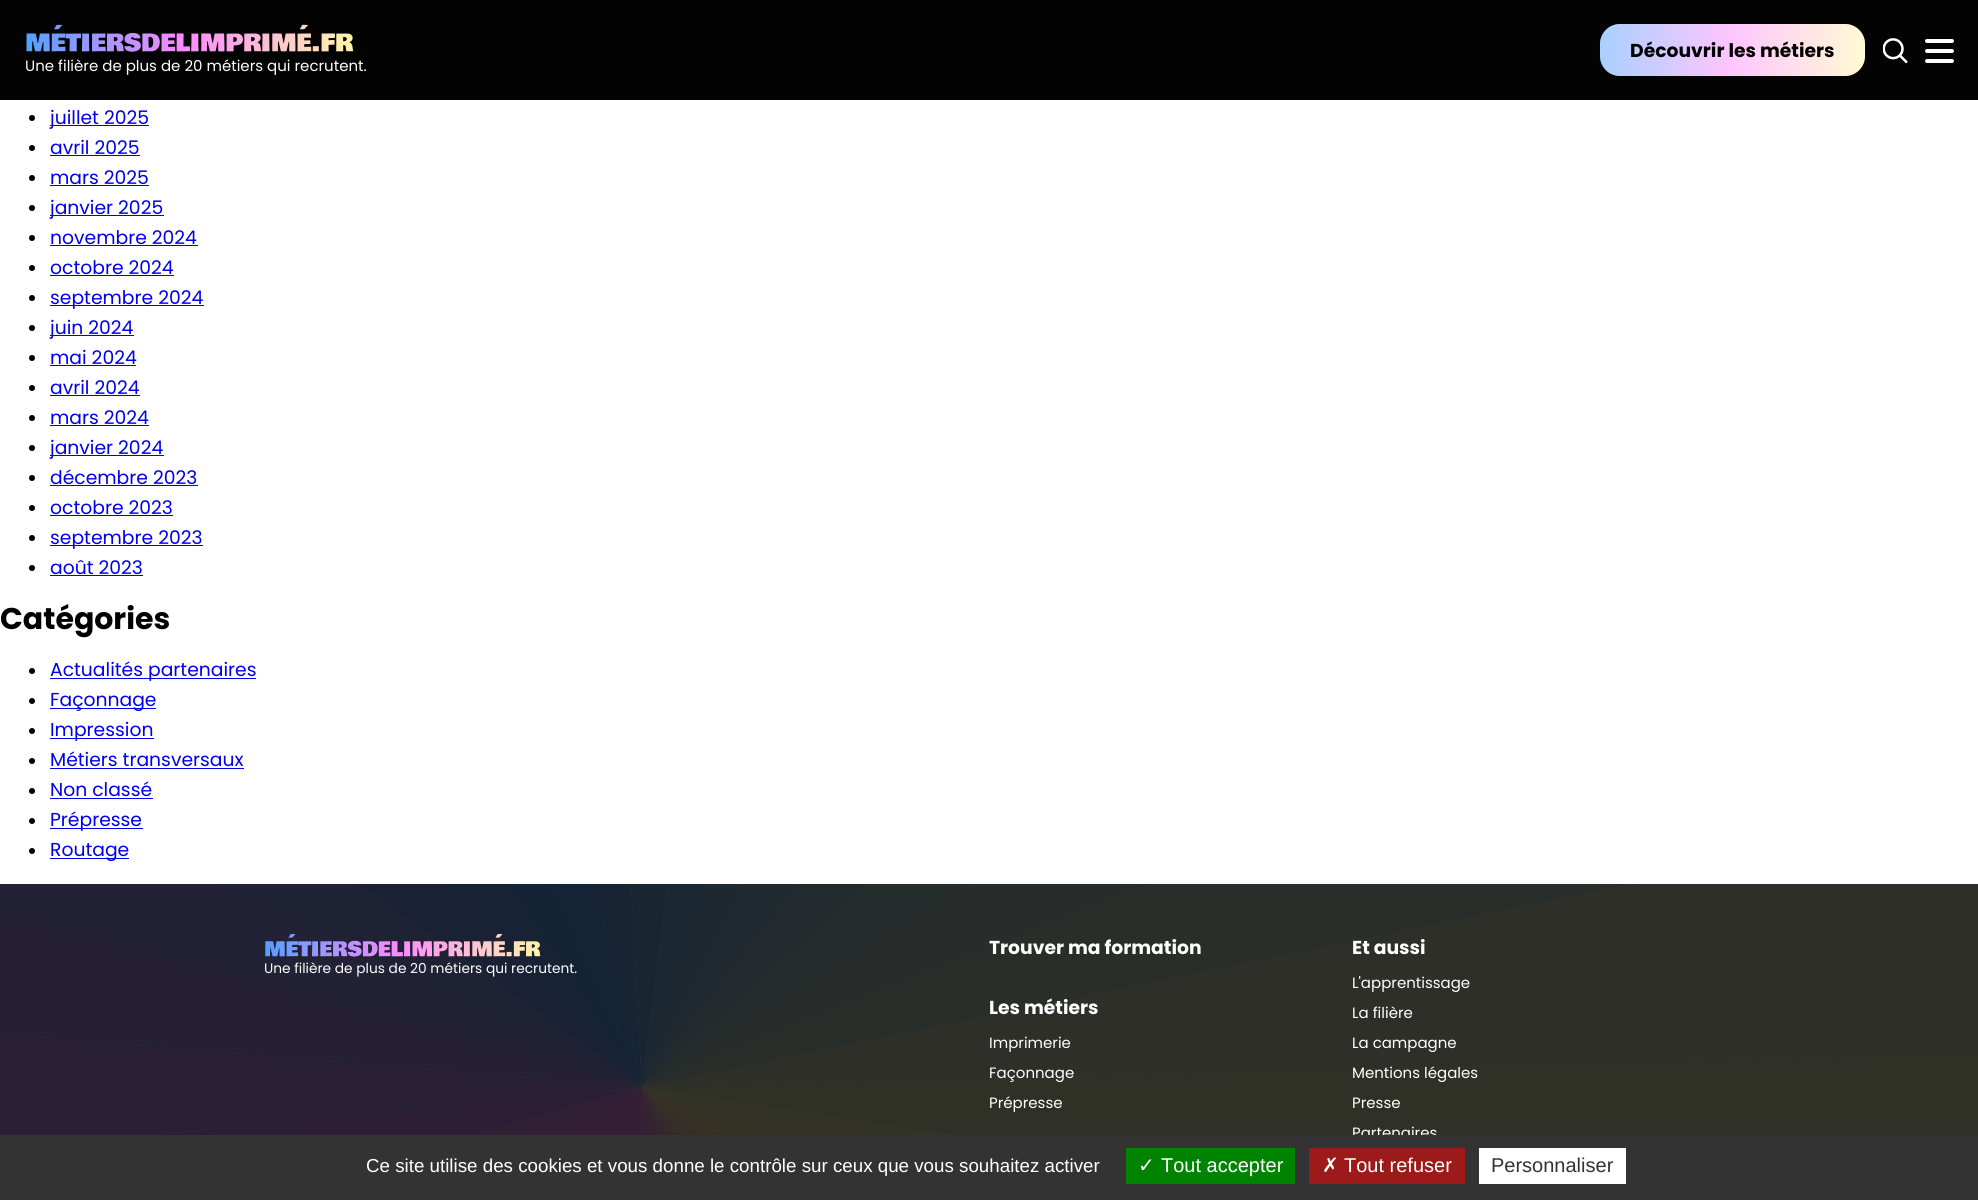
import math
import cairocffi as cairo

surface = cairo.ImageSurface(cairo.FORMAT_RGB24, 1978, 1200)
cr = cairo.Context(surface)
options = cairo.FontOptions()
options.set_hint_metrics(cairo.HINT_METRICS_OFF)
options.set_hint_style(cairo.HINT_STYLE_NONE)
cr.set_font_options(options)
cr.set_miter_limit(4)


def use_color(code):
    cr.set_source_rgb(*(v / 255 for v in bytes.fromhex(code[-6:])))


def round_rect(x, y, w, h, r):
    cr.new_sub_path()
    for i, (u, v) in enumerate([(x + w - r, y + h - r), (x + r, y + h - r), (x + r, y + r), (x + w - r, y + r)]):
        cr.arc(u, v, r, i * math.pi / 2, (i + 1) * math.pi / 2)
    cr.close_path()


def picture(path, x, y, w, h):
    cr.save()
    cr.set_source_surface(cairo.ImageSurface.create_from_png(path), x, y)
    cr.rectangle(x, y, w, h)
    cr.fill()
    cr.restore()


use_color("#ffffff")
cr.paint()
use_color("#353535")
cr.rectangle(0, 884, 1978, 251)
cr.fill()
use_color("#030303")
cr.rectangle(0, 0, 1978, 100)
cr.fill()
cr.select_font_face("Bowlby One")
cr.set_font_size(23.75)
gradient = cairo.LinearGradient(25, 43, 353, 43)
gradient.add_color_stop_rgba(0, 0.318, 0.631, 1, 1)
gradient.add_color_stop_rgba(0.49, 0.992, 0.541, 1, 1)
gradient.add_color_stop_rgba(1, 1, 0.965, 0.659, 1)
cr.set_source(gradient)
cr.move_to(25, 51)
cr.show_text("MÉTIERSDELIMPRIMÉ.FR")
cr.select_font_face("Poppins")
cr.set_font_size(15)
use_color("#ffffff")
cr.move_to(25, 71)
cr.show_text("Une filière de plus de 20 métiers qui recrutent.")
gradient = cairo.LinearGradient(1600, 50, 1865, 50)
gradient.add_color_stop_rgba(0, 0.318, 0.631, 1, 1)
gradient.add_color_stop_rgba(0.49, 0.992, 0.541, 1, 1)
gradient.add_color_stop_rgba(1, 1, 0.965, 0.659, 1)
cr.set_source(gradient)
round_rect(1600, 24, 265, 52, 20)
cr.fill()
cr.set_source_rgba(1, 1, 1, 0.5)
round_rect(1600, 24, 265, 52, 20)
cr.fill()
cr.select_font_face("Poppins", cairo.FONT_SLANT_NORMAL, cairo.FONT_WEIGHT_BOLD)
cr.set_font_size(18.75)
use_color("#000000")
cr.move_to(1630, 57)
cr.show_text("Découvrir les métiers")
picture("img1.png", 1883, 38, 25, 26)
use_color("#ffffff")
round_rect(1925, 39, 29, 4, 2)
cr.fill()
round_rect(1925, 49, 29, 4, 2)
cr.fill()
round_rect(1925, 59, 29, 4, 2)
cr.fill()
use_color("#000000")
cr.arc(32, 118, 3, 0, 2 * math.pi)
cr.fill()
use_color("#0000ee")
cr.rectangle(50, 125, 99, 1)
cr.fill()
cr.select_font_face("Poppins")
cr.move_to(50, 124)
cr.show_text("juillet 2025")
use_color("#000000")
cr.new_path()
cr.arc(32, 148, 3, 0, 2 * math.pi)
cr.fill()
use_color("#0000ee")
cr.move_to(50, 154)
cr.show_text("avril 2025")
cr.rectangle(50, 155, 90, 1)
cr.fill()
use_color("#000000")
cr.arc(32, 178, 3, 0, 2 * math.pi)
cr.fill()
use_color("#0000ee")
cr.move_to(50, 184)
cr.show_text("mars 2025")
cr.rectangle(50, 185, 99, 1)
cr.fill()
use_color("#000000")
cr.arc(32, 208, 3, 0, 2 * math.pi)
cr.fill()
use_color("#0000ee")
cr.rectangle(50, 215, 114, 1)
cr.fill()
cr.move_to(50, 214)
cr.show_text("janvier 2025")
use_color("#000000")
cr.new_path()
cr.arc(32, 238, 3, 0, 2 * math.pi)
cr.fill()
use_color("#0000ee")
cr.move_to(50, 244)
cr.show_text("novembre 2024")
cr.rectangle(50, 245, 148, 1)
cr.fill()
use_color("#000000")
cr.arc(32, 268, 3, 0, 2 * math.pi)
cr.fill()
use_color("#0000ee")
cr.move_to(50, 274)
cr.show_text("octobre 2024")
cr.rectangle(50, 275, 124, 1)
cr.fill()
use_color("#000000")
cr.arc(32, 298, 3, 0, 2 * math.pi)
cr.fill()
use_color("#0000ee")
cr.rectangle(50, 305, 154, 1)
cr.fill()
cr.move_to(50, 304)
cr.show_text("septembre 2024")
use_color("#000000")
cr.new_path()
cr.arc(32, 328, 3, 0, 2 * math.pi)
cr.fill()
use_color("#0000ee")
cr.rectangle(50, 335, 84, 1)
cr.fill()
cr.move_to(50, 334)
cr.show_text("juin 2024")
use_color("#000000")
cr.new_path()
cr.arc(32, 358, 3, 0, 2 * math.pi)
cr.fill()
use_color("#0000ee")
cr.move_to(50, 364)
cr.show_text("mai 2024")
cr.rectangle(50, 365, 86, 1)
cr.fill()
use_color("#000000")
cr.arc(32, 388, 3, 0, 2 * math.pi)
cr.fill()
use_color("#0000ee")
cr.move_to(50, 394)
cr.show_text("avril 2024")
cr.rectangle(50, 395, 90, 1)
cr.fill()
use_color("#000000")
cr.arc(32, 418, 3, 0, 2 * math.pi)
cr.fill()
use_color("#0000ee")
cr.move_to(50, 424)
cr.show_text("mars 2024")
cr.rectangle(50, 425, 99, 1)
cr.fill()
use_color("#000000")
cr.arc(32, 448, 3, 0, 2 * math.pi)
cr.fill()
use_color("#0000ee")
cr.rectangle(50, 455, 114, 1)
cr.fill()
cr.move_to(50, 454)
cr.show_text("janvier 2024")
use_color("#000000")
cr.new_path()
cr.arc(32, 478, 3, 0, 2 * math.pi)
cr.fill()
use_color("#0000ee")
cr.move_to(50, 484)
cr.show_text("décembre 2023")
cr.rectangle(50, 485, 148, 1)
cr.fill()
use_color("#000000")
cr.arc(32, 508, 3, 0, 2 * math.pi)
cr.fill()
use_color("#0000ee")
cr.move_to(50, 514)
cr.show_text("octobre 2023")
cr.rectangle(50, 515, 123, 1)
cr.fill()
use_color("#000000")
cr.arc(32, 538, 3, 0, 2 * math.pi)
cr.fill()
use_color("#0000ee")
cr.rectangle(50, 545, 153, 1)
cr.fill()
cr.move_to(50, 544)
cr.show_text("septembre 2023")
use_color("#000000")
cr.new_path()
cr.arc(32, 568, 3, 0, 2 * math.pi)
cr.fill()
use_color("#0000ee")
cr.move_to(50, 574)
cr.show_text("août 2023")
cr.rectangle(50, 575, 93, 1)
cr.fill()
cr.select_font_face("Poppins", cairo.FONT_SLANT_NORMAL, cairo.FONT_WEIGHT_BOLD)
cr.set_font_size(30)
use_color("#000000")
cr.move_to(0, 629)
cr.show_text("Catégories")
cr.new_path()
cr.arc(32, 671, 3, 0, 2 * math.pi)
cr.fill()
use_color("#0000ee")
cr.rectangle(50, 678, 206, 1)
cr.fill()
cr.select_font_face("Poppins")
cr.set_font_size(18.75)
cr.move_to(50, 676)
cr.show_text("Actualités partenaires")
use_color("#000000")
cr.new_path()
cr.arc(32, 701, 3, 0, 2 * math.pi)
cr.fill()
use_color("#0000ee")
cr.rectangle(50, 708, 106, 1)
cr.fill()
cr.move_to(50, 706)
cr.show_text("Façonnage")
use_color("#000000")
cr.new_path()
cr.arc(32, 731, 3, 0, 2 * math.pi)
cr.fill()
use_color("#0000ee")
cr.rectangle(50, 738, 104, 1)
cr.fill()
cr.move_to(50, 736)
cr.show_text("Impression")
use_color("#000000")
cr.new_path()
cr.arc(32, 761, 3, 0, 2 * math.pi)
cr.fill()
use_color("#0000ee")
cr.move_to(50, 766)
cr.show_text("Métiers transversaux")
cr.rectangle(50, 768, 194, 1)
cr.fill()
use_color("#000000")
cr.arc(32, 791, 3, 0, 2 * math.pi)
cr.fill()
use_color("#0000ee")
cr.move_to(50, 796)
cr.show_text("Non classé")
cr.rectangle(50, 798, 103, 1)
cr.fill()
use_color("#000000")
cr.arc(32, 821, 3, 0, 2 * math.pi)
cr.fill()
use_color("#0000ee")
cr.rectangle(50, 828, 93, 1)
cr.fill()
cr.move_to(50, 826)
cr.show_text("Prépresse")
use_color("#000000")
cr.new_path()
cr.arc(32, 851, 3, 0, 2 * math.pi)
cr.fill()
use_color("#0000ee")
cr.rectangle(50, 858, 79, 1)
cr.fill()
cr.move_to(50, 856)
cr.show_text("Routage")
picture("img2.png", 0, 884, 1978, 251)
cr.select_font_face("Bowlby One")
cr.set_font_size(20)
gradient = cairo.LinearGradient(264, 949, 541, 949)
gradient.add_color_stop_rgba(0, 0.318, 0.631, 1, 1)
gradient.add_color_stop_rgba(0.49, 0.992, 0.541, 1, 1)
gradient.add_color_stop_rgba(1, 1, 0.965, 0.659, 1)
cr.set_source(gradient)
cr.move_to(264, 956)
cr.show_text("MÉTIERSDELIMPRIMÉ.FR")
cr.select_font_face("Poppins")
cr.set_font_size(13.75)
use_color("#ffffff")
cr.move_to(264, 973)
cr.show_text("Une filière de plus de 20 métiers qui recrutent.")
cr.select_font_face("Poppins", cairo.FONT_SLANT_NORMAL, cairo.FONT_WEIGHT_BOLD)
cr.set_font_size(18.75)
cr.move_to(989, 954)
cr.show_text("Trouver ma formation")
cr.move_to(989, 1014)
cr.show_text("Les métiers")
cr.select_font_face("Poppins")
cr.set_font_size(15)
cr.move_to(989, 1048)
cr.show_text("Imprimerie")
cr.move_to(989, 1078)
cr.show_text("Façonnage")
cr.move_to(989, 1108)
cr.show_text("Prépresse")
cr.select_font_face("Poppins", cairo.FONT_SLANT_NORMAL, cairo.FONT_WEIGHT_BOLD)
cr.set_font_size(18.75)
cr.move_to(1352, 954)
cr.show_text("Et aussi")
cr.select_font_face("Poppins")
cr.set_font_size(15)
cr.move_to(1352, 988)
cr.show_text("L'apprentissage")
cr.move_to(1352, 1018)
cr.show_text("La filière")
cr.move_to(1352, 1048)
cr.show_text("La campagne")
cr.move_to(1352, 1078)
cr.show_text("Mentions légales")
cr.move_to(1352, 1108)
cr.show_text("Presse")
cr.move_to(1352, 1138)
cr.show_text("Partenaires")
use_color("#333333")
cr.rectangle(0, 1135, 1978, 65)
cr.fill()
cr.select_font_face("Liberation Sans")
cr.set_font_size(18.75)
use_color("#ffffff")
cr.move_to(366, 1172)
cr.show_text("Ce site utilise des cookies et vous donne le contrôle sur ceux que vous souhaitez activer")
use_color("#008300")
cr.rectangle(1126, 1148, 169, 36)
cr.fill()
cr.select_font_face("DejaVu Sans")
cr.set_font_size(20)
use_color("#ffffff")
cr.move_to(1138, 1172)
cr.show_text("✓")
cr.select_font_face("Liberation Sans")
cr.move_to(1161, 1172)
cr.show_text("Tout accepter")
use_color("#9c1a1a")
cr.rectangle(1309, 1148, 156, 36)
cr.fill()
cr.select_font_face("DejaVu Sans")
use_color("#ffffff")
cr.move_to(1322, 1172)
cr.show_text("✗")
cr.select_font_face("Liberation Sans")
cr.move_to(1344, 1172)
cr.show_text("Tout refuser")
cr.rectangle(1479, 1148, 147, 36)
cr.fill()
use_color("#333333")
cr.move_to(1491, 1172)
cr.show_text("Personnaliser")
surface.write_to_png("result.png")
